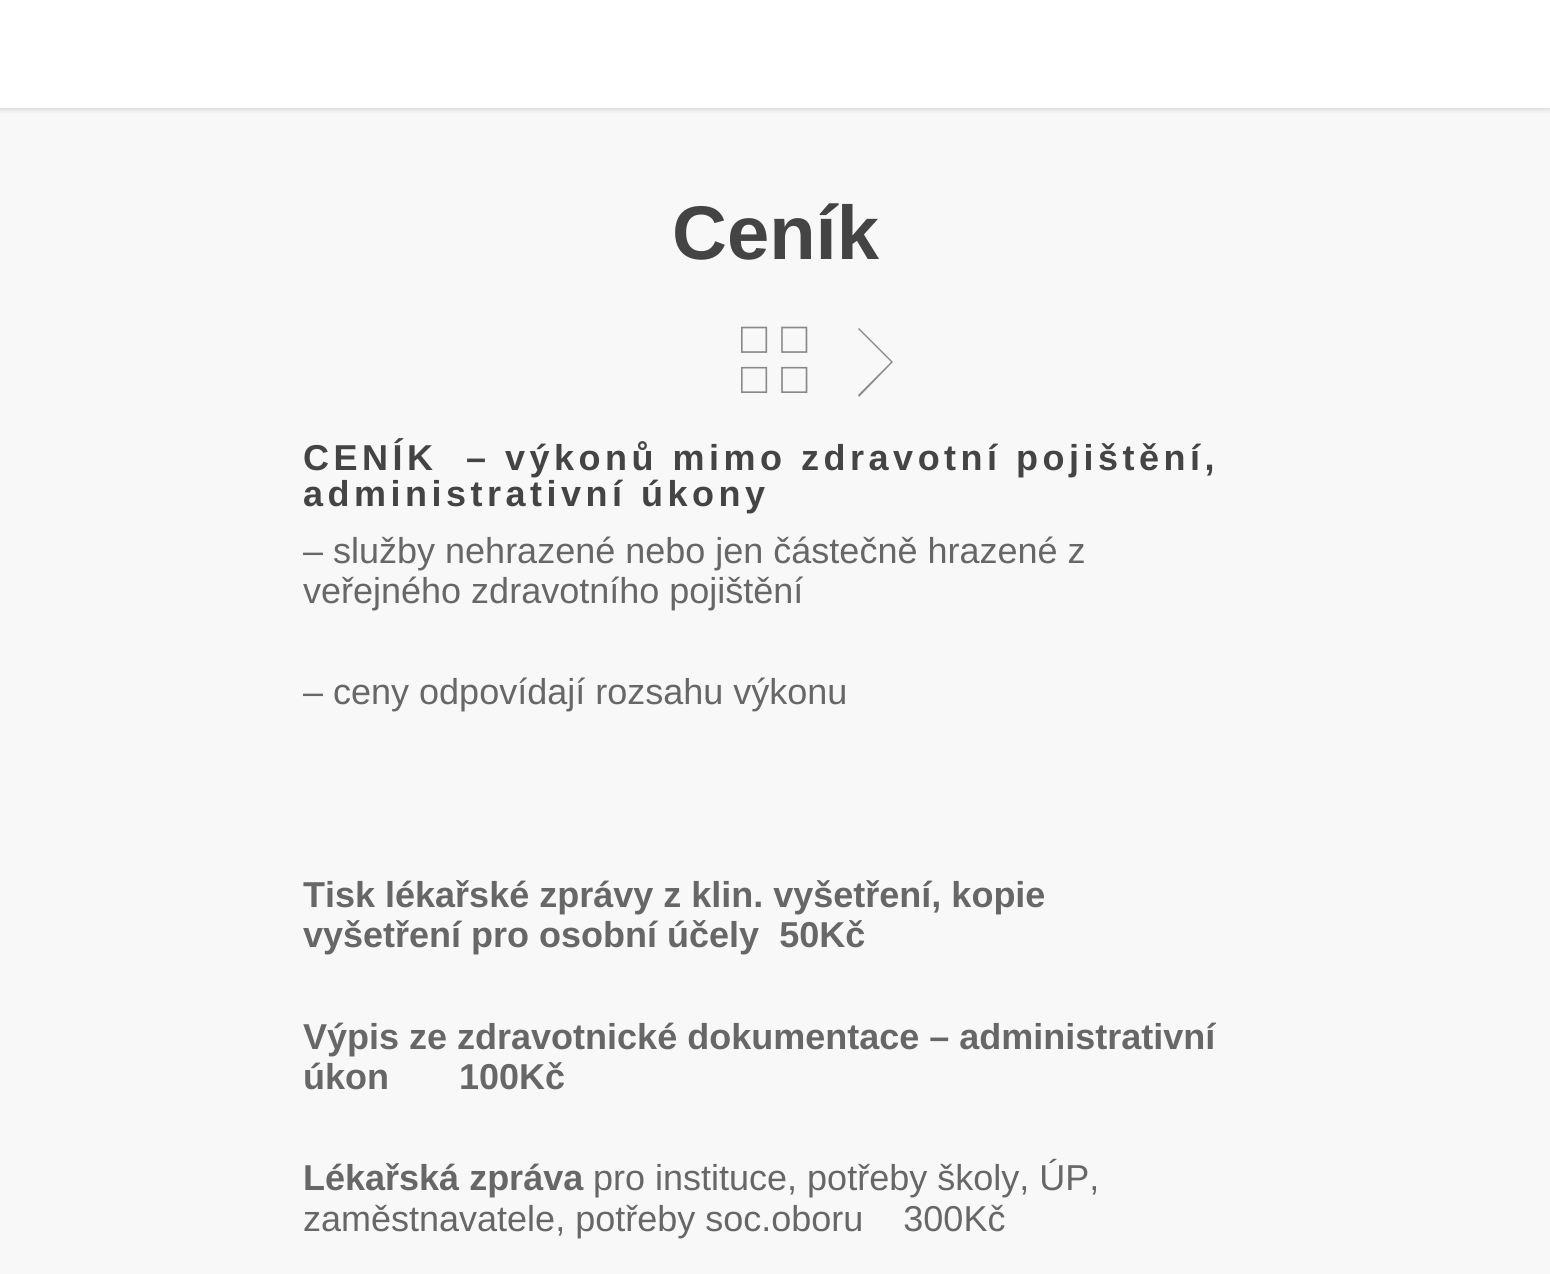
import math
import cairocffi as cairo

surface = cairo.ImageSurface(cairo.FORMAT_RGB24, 1550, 1274)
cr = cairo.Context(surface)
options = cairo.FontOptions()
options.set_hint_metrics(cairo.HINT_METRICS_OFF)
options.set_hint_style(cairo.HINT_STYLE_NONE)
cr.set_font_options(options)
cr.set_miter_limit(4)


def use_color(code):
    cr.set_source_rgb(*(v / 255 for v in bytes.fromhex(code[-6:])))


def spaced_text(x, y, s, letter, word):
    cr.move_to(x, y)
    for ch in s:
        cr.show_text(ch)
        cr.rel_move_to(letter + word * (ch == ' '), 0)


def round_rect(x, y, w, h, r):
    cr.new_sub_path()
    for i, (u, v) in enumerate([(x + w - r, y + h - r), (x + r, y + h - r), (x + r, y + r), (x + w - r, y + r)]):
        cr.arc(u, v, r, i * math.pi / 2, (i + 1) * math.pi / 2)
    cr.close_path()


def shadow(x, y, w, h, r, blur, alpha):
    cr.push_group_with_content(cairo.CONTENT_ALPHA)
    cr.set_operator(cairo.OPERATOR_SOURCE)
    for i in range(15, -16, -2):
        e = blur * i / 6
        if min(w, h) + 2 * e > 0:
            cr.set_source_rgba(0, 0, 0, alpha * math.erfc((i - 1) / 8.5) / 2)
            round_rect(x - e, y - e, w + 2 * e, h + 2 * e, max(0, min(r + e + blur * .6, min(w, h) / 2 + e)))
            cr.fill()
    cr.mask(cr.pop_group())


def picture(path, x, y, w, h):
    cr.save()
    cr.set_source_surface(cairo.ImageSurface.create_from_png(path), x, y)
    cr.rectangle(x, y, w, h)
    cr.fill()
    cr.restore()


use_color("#ffffff")
cr.paint()
use_color("#f8f8f8")
cr.rectangle(0, 108, 1550, 1166)
cr.fill()
cr.save()
cr.rectangle(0, 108, 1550, 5)
cr.clip()
use_color("#000000")
shadow(0, 0, 1550, 108, 0, 3.5, 0.22)
cr.restore()
cr.select_font_face("Liberation Sans", cairo.FONT_SLANT_NORMAL, cairo.FONT_WEIGHT_BOLD)
cr.set_font_size(76)
use_color("#444444")
cr.move_to(672, 259)
cr.show_text("Ceník")
picture("img1.png", 741, 326, 67, 67)
use_color("#888888")
cr.new_path()
cr.move_to(858, 329)
cr.line_to(859, 328)
cr.line_to(893, 362)
cr.line_to(859, 397)
cr.line_to(858, 395)
cr.line_to(891, 362)
cr.close_path()
cr.fill()
cr.set_font_size(36)
use_color("#444444")
spaced_text(303, 470, "CENÍK", 4.5, 0)
spaced_text(466, 470, "– výkonů mimo zdravotní pojištění,", 4.5, 0)
spaced_text(303, 506, "administrativní úkony", 4.5, 0)
cr.select_font_face("Liberation Sans")
use_color("#676767")
cr.move_to(303, 563)
cr.show_text("– služby nehrazené nebo jen částečně hrazené z")
cr.move_to(303, 603)
cr.show_text("veřejného zdravotního pojištění")
cr.move_to(303, 704)
cr.show_text("– ceny odpovídají rozsahu výkonu")
cr.select_font_face("Liberation Sans", cairo.FONT_SLANT_NORMAL, cairo.FONT_WEIGHT_BOLD)
cr.move_to(303, 907)
cr.show_text("Tisk lékařské zprávy z klin. vyšetření, kopie")
cr.move_to(303, 947)
cr.show_text("vyšetření pro osobní účely  50Kč")
cr.move_to(303, 1049)
cr.show_text("Výpis ze zdravotnické dokumentace – administrativní")
cr.move_to(303, 1089)
cr.show_text("úkon       100Kč")
cr.move_to(303, 1190)
cr.show_text("Lékařská zpráva")
cr.select_font_face("Liberation Sans")
cr.move_to(593, 1190)
cr.show_text("pro instituce, potřeby školy, ÚP,")
cr.move_to(303, 1231)
cr.show_text("zaměstnavatele, potřeby soc.oboru    300Kč")
surface.write_to_png("result.png")
